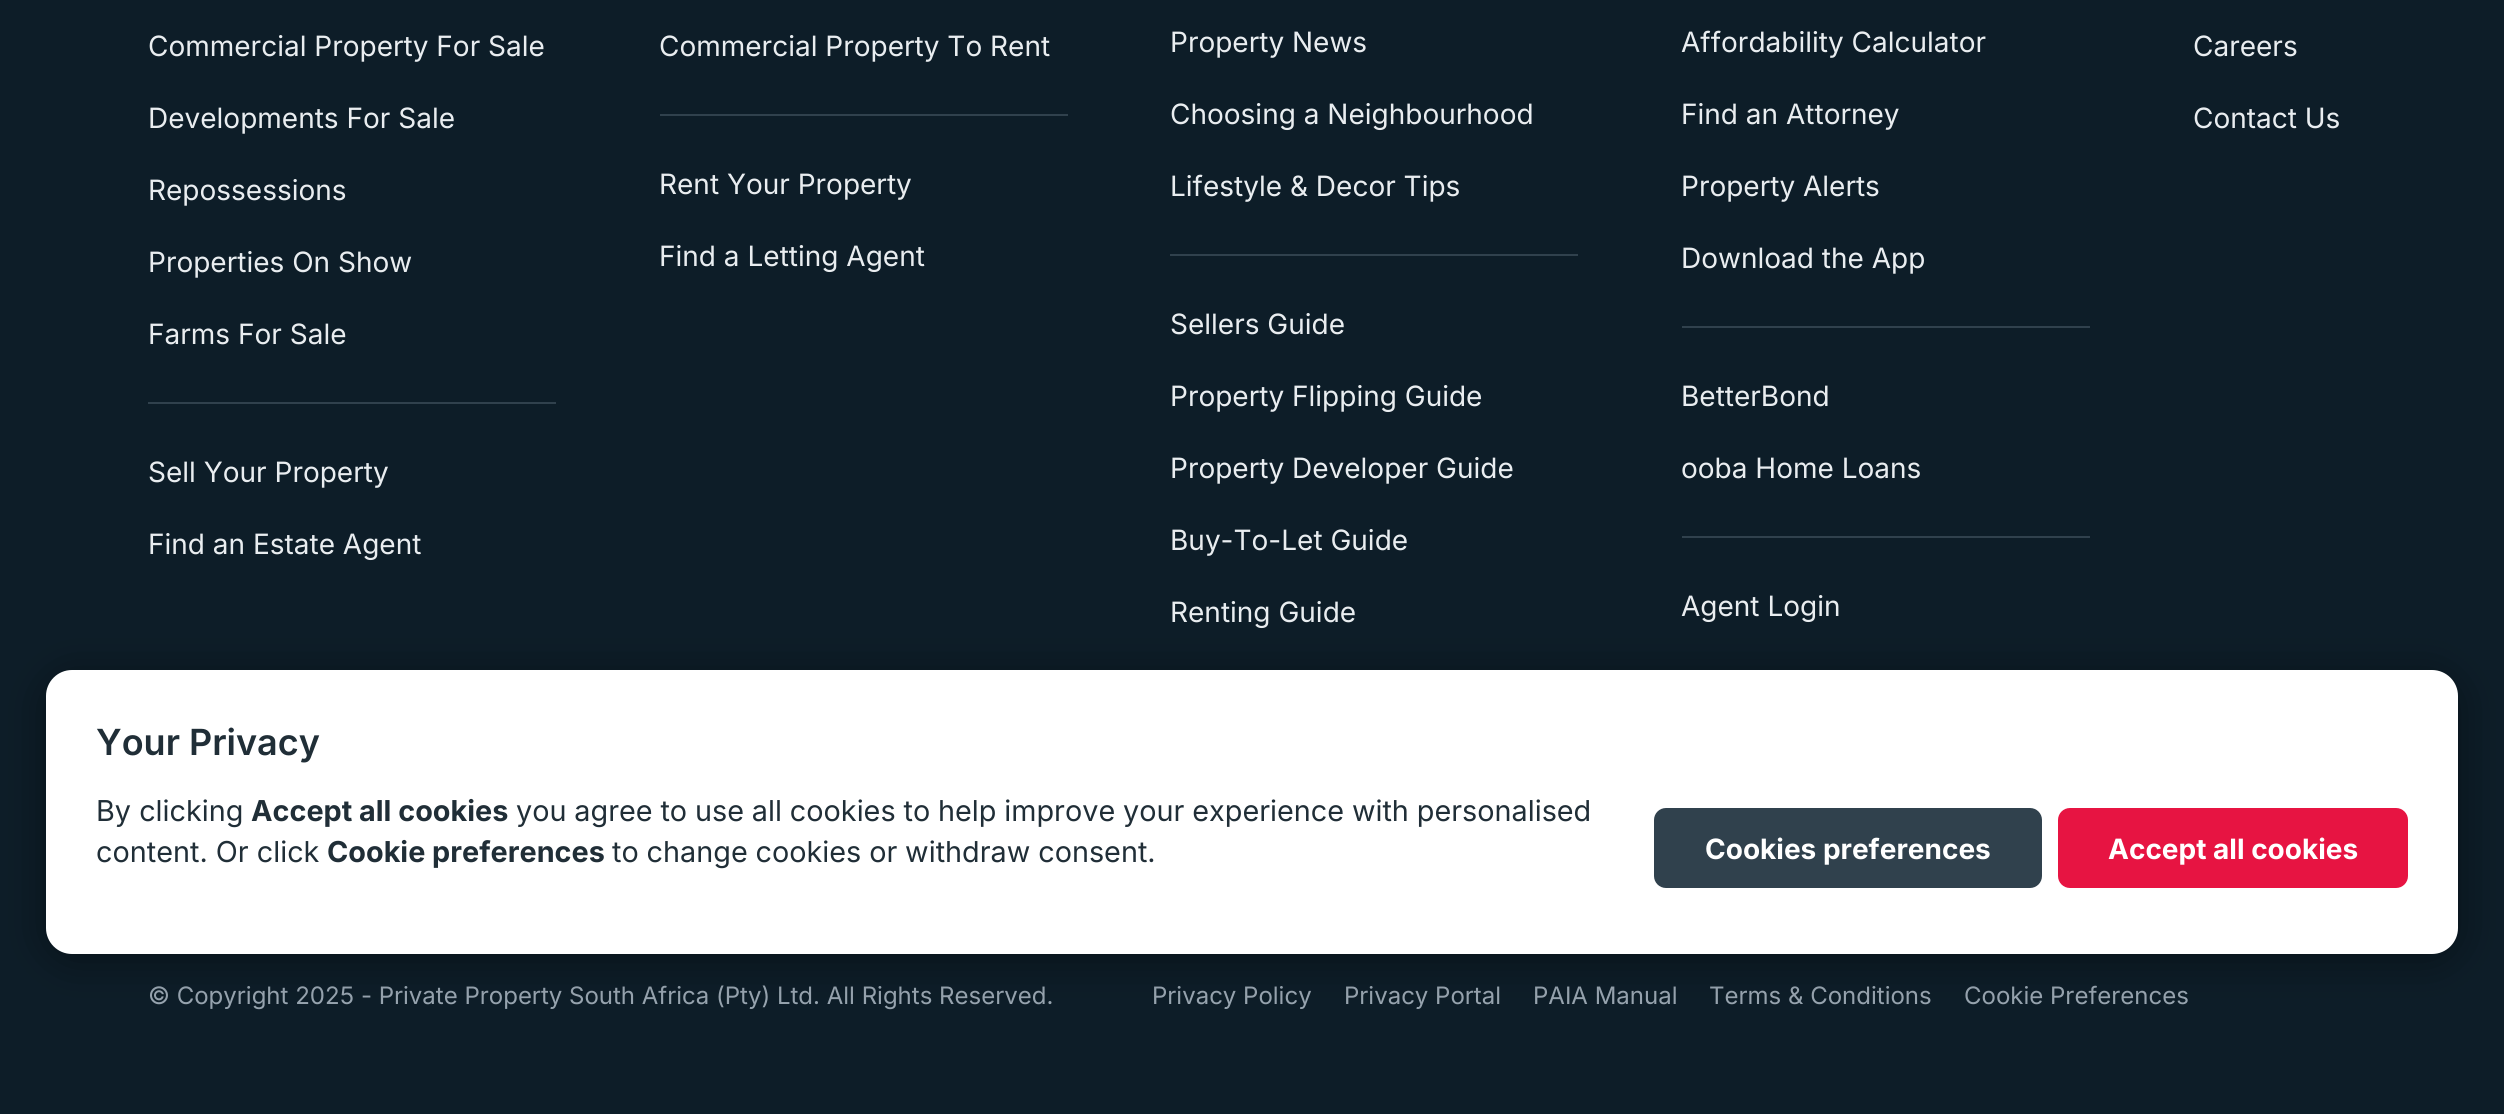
import math
import cairocffi as cairo

surface = cairo.ImageSurface(cairo.FORMAT_RGB24, 2504, 1114)
cr = cairo.Context(surface)
options = cairo.FontOptions()
options.set_hint_metrics(cairo.HINT_METRICS_OFF)
options.set_hint_style(cairo.HINT_STYLE_NONE)
cr.set_font_options(options)
cr.set_miter_limit(4)


def use_color(code):
    cr.set_source_rgb(*(v / 255 for v in bytes.fromhex(code[-6:])))


def spaced_text(x, y, s, letter, word):
    cr.move_to(x, y)
    for ch in s:
        cr.show_text(ch)
        cr.rel_move_to(letter + word * (ch == ' '), 0)


def round_rect(x, y, w, h, r):
    cr.new_sub_path()
    for i, (u, v) in enumerate([(x + w - r, y + h - r), (x + r, y + h - r), (x + r, y + r), (x + w - r, y + r)]):
        cr.arc(u, v, r, i * math.pi / 2, (i + 1) * math.pi / 2)
    cr.close_path()


def shadow(x, y, w, h, r, blur, alpha):
    cr.push_group_with_content(cairo.CONTENT_ALPHA)
    cr.set_operator(cairo.OPERATOR_SOURCE)
    for i in range(15, -16, -2):
        e = blur * i / 6
        if min(w, h) + 2 * e > 0:
            cr.set_source_rgba(0, 0, 0, alpha * math.erfc((i - 1) / 8.5) / 2)
            round_rect(x - e, y - e, w + 2 * e, h + 2 * e, max(0, min(r + e + blur * .6, min(w, h) / 2 + e)))
            cr.fill()
    cr.mask(cr.pop_group())


use_color("#0d1d28")
cr.paint()
cr.select_font_face("Inter")
cr.set_font_size(28)
use_color("#e9edf0")
cr.move_to(148, 56)
cr.show_text("Commercial Property For Sale")
cr.move_to(148, 128)
cr.show_text("Developments For Sale")
cr.move_to(148, 200)
cr.show_text("Repossessions")
cr.move_to(148, 272)
cr.show_text("Properties On Show")
cr.move_to(148, 344)
cr.show_text("Farms For Sale")
use_color("#30414d")
cr.rectangle(148, 402, 408, 2)
cr.fill()
use_color("#e9edf0")
cr.move_to(148, 482)
cr.show_text("Sell Your Property")
cr.move_to(148, 554)
cr.show_text("Find an Estate Agent")
cr.move_to(659, 56)
cr.show_text("Commercial Property To Rent")
use_color("#30414d")
cr.rectangle(660, 114, 408, 2)
cr.fill()
use_color("#e9edf0")
cr.move_to(659, 194)
cr.show_text("Rent Your Property")
cr.move_to(659, 266)
cr.show_text("Find a Letting Agent")
cr.move_to(1170, 52)
cr.show_text("Property News")
cr.move_to(1170, 124)
cr.show_text("Choosing a Neighbourhood")
cr.move_to(1170, 196)
cr.show_text("Lifestyle & Decor Tips")
use_color("#30414d")
cr.rectangle(1170, 254, 408, 2)
cr.fill()
use_color("#e9edf0")
cr.move_to(1170, 334)
cr.show_text("Sellers Guide")
cr.move_to(1170, 406)
cr.show_text("Property Flipping Guide")
cr.move_to(1170, 478)
cr.show_text("Property Developer Guide")
cr.move_to(1170, 550)
cr.show_text("Buy-To-Let Guide")
cr.move_to(1170, 622)
cr.show_text("Renting Guide")
cr.move_to(1681, 52)
cr.show_text("Affordability Calculator")
cr.move_to(1681, 124)
cr.show_text("Find an Attorney")
cr.move_to(1681, 196)
cr.show_text("Property Alerts")
cr.move_to(1681, 268)
cr.show_text("Download the App")
use_color("#30414d")
cr.rectangle(1682, 326, 408, 2)
cr.fill()
use_color("#e9edf0")
cr.move_to(1681, 406)
cr.show_text("BetterBond")
cr.move_to(1681, 478)
cr.show_text("ooba Home Loans")
use_color("#30414d")
cr.rectangle(1682, 536, 408, 2)
cr.fill()
use_color("#e9edf0")
cr.move_to(1681, 616)
cr.show_text("Agent Login")
cr.move_to(2193, 56)
cr.show_text("Careers")
cr.move_to(2193, 128)
cr.show_text("Contact Us")
cr.set_font_size(24)
use_color("#97a4af")
cr.move_to(148, 1004)
cr.show_text("© Copyright 2025 - Private Property South Africa (Pty) Ltd. All Rights Reserved.")
cr.move_to(1152, 1004)
cr.show_text("Privacy Policy")
cr.move_to(1344, 1004)
cr.show_text("Privacy Portal")
cr.move_to(1533, 1004)
cr.show_text("PAIA Manual")
cr.move_to(1709, 1004)
cr.show_text("Terms & Conditions")
cr.move_to(1964, 1004)
cr.show_text("Cookie Preferences")
use_color("#000000")
shadow(46, 676, 2412, 284, 26, 21, 0.4)
use_color("#ffffff")
round_rect(46, 670, 2412, 284, 26)
cr.fill()
cr.select_font_face("Inter SemiBold")
cr.set_font_size(36)
use_color("#202e37")
cr.move_to(96, 755)
cr.show_text("Your Privacy")
cr.select_font_face("Inter")
cr.set_font_size(28.8)
cr.move_to(96, 821)
cr.show_text("By clicking")
cr.select_font_face("Inter", cairo.FONT_SLANT_NORMAL, cairo.FONT_WEIGHT_BOLD)
cr.move_to(251, 821)
cr.show_text("Accept all cookies")
cr.select_font_face("Inter")
spaced_text(516, 821, "you agree to use all cookies to help improve your experience with personalised", 0, -0.25)
cr.move_to(96, 862)
cr.show_text("content. Or click")
cr.select_font_face("Inter", cairo.FONT_SLANT_NORMAL, cairo.FONT_WEIGHT_BOLD)
cr.move_to(327, 862)
cr.show_text("Cookie preferences")
cr.select_font_face("Inter")
spaced_text(612, 862, "to change cookies or withdraw consent.", 0, -0.25)
use_color("#30414d")
round_rect(1654, 808, 388, 80, 12)
cr.fill()
cr.select_font_face("Inter", cairo.FONT_SLANT_NORMAL, cairo.FONT_WEIGHT_BOLD)
cr.set_font_size(28)
use_color("#ffffff")
cr.move_to(1705, 859)
cr.show_text("Cookies preferences")
use_color("#e71442")
round_rect(2058, 808, 350, 80, 12)
cr.fill()
use_color("#ffffff")
cr.move_to(2108, 859)
cr.show_text("Accept all cookies")
surface.write_to_png("result.png")
